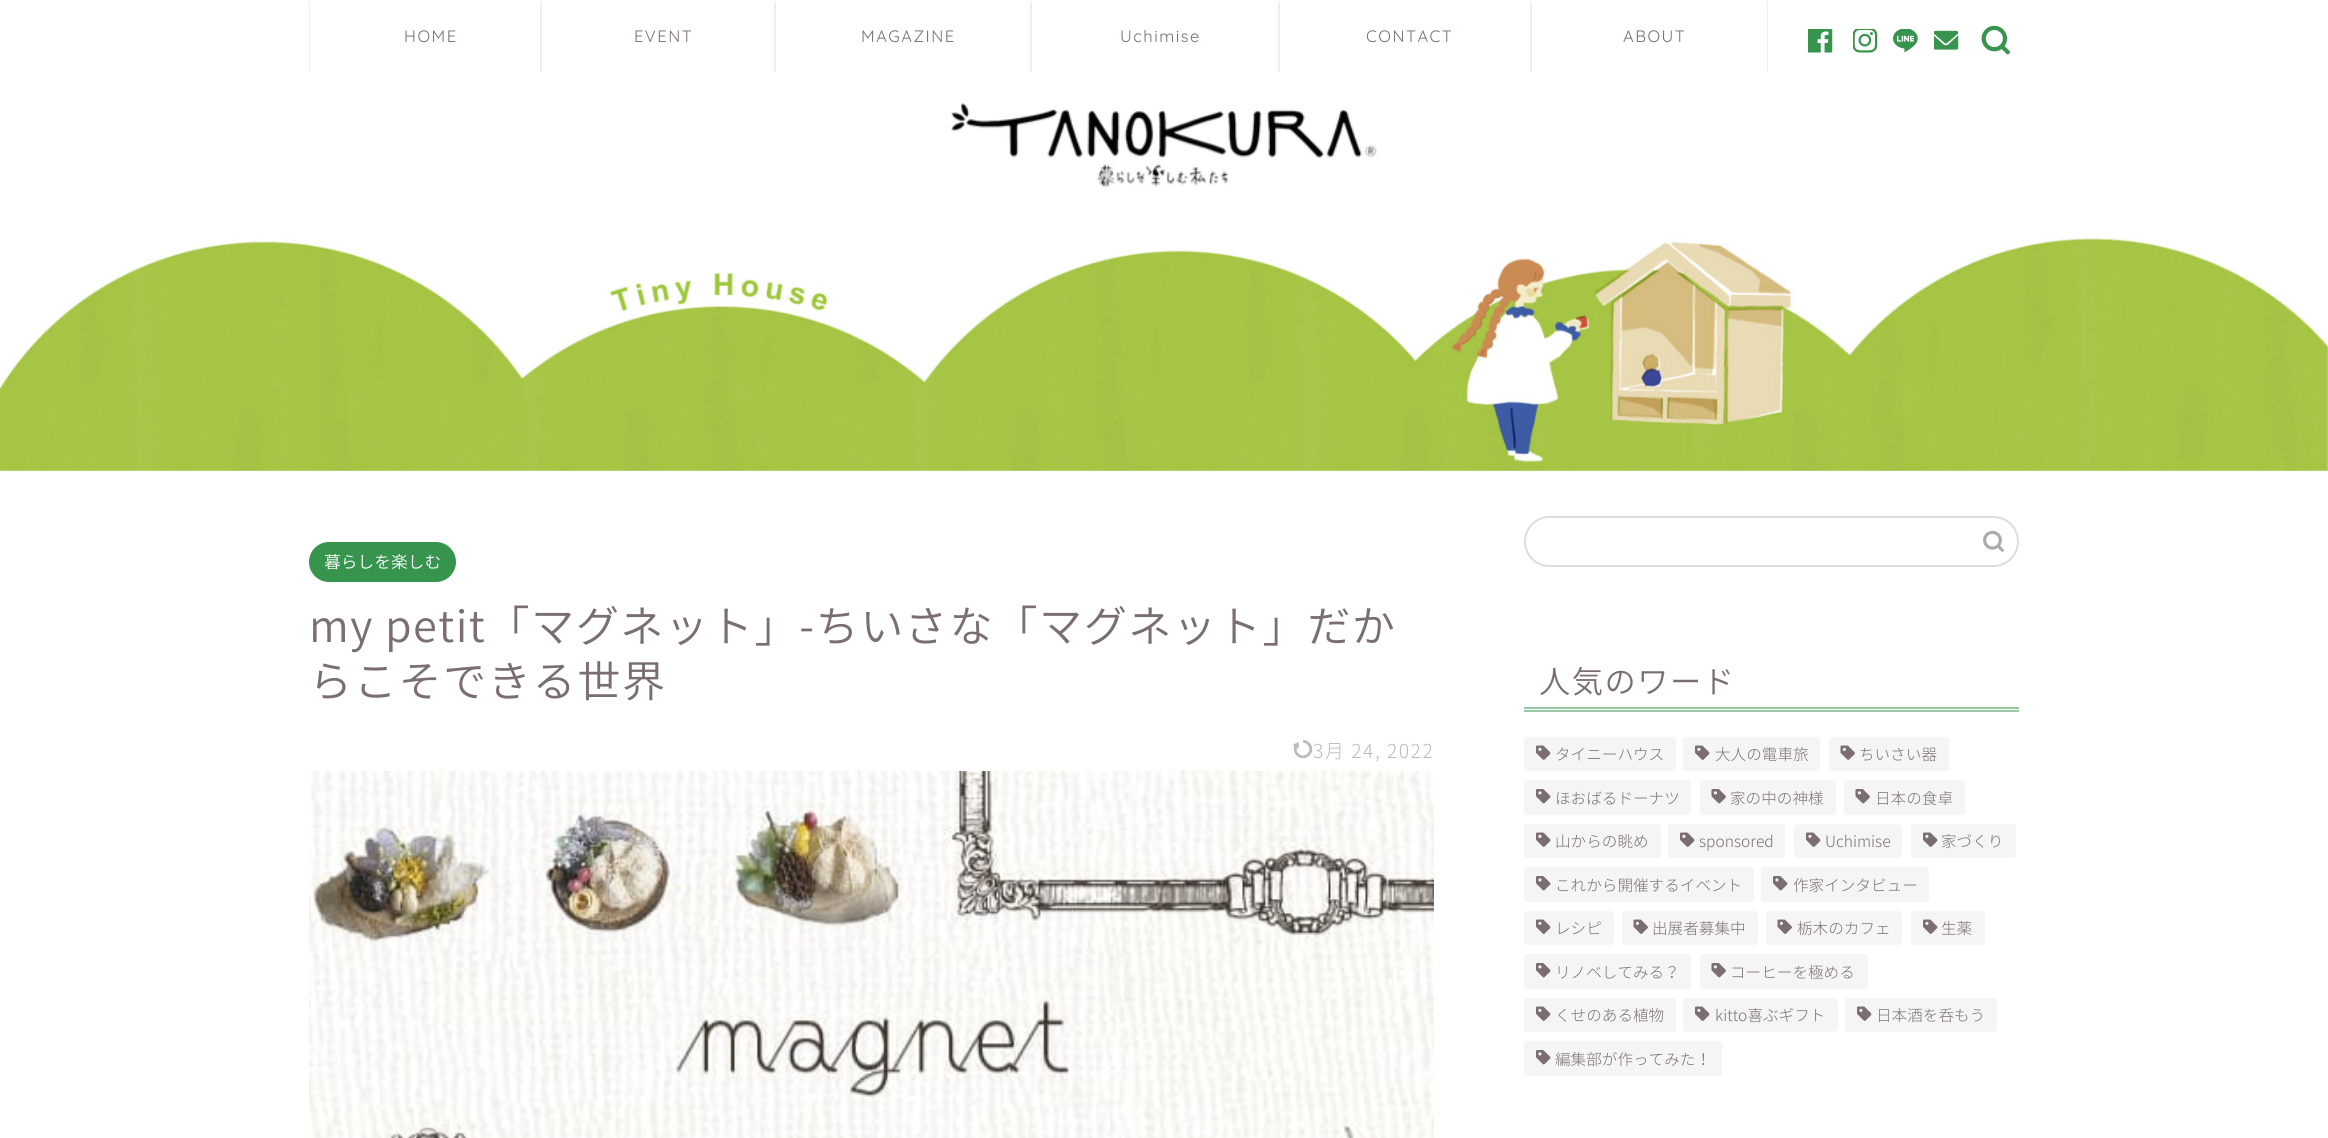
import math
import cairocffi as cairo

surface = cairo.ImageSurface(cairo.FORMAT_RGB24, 2328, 1138)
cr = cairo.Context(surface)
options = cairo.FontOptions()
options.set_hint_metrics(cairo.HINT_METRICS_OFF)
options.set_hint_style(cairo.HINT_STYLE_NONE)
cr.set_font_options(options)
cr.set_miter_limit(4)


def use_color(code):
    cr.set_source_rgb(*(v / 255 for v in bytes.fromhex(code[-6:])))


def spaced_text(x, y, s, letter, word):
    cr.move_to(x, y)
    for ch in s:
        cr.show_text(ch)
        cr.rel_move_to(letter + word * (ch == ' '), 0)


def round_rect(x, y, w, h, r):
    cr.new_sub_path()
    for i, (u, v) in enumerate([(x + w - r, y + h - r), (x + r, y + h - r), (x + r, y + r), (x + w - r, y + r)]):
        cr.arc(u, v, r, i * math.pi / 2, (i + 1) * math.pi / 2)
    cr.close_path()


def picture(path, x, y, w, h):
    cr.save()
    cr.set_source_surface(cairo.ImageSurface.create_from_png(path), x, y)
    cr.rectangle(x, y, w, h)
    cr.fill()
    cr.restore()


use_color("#ffffff")
cr.paint()
use_color("#efefef")
cr.new_path()
cr.move_to(309, 72)
cr.line_to(309, 0)
cr.line_to(310, 3)
cr.line_to(310, 72)
cr.close_path()
cr.fill()
cr.select_font_face("Quicksand Light")
cr.set_font_size(16.5)
use_color("#7a6e71")
spaced_text(404, 42, "HOME", 1.5, 0)
use_color("#efefef")
cr.new_path()
cr.move_to(540, 72)
cr.line_to(540, 0)
cr.line_to(542, 3)
cr.line_to(542, 72)
cr.close_path()
cr.fill()
use_color("#7a6e71")
spaced_text(634, 42, "EVENT", 1.5, 0)
use_color("#efefef")
cr.new_path()
cr.move_to(774, 72)
cr.line_to(774, 0)
cr.line_to(776, 3)
cr.line_to(776, 72)
cr.close_path()
cr.fill()
use_color("#7a6e71")
spaced_text(861, 42, "MAGAZINE", 1.5, 0)
use_color("#efefef")
cr.new_path()
cr.move_to(1030, 72)
cr.line_to(1030, 0)
cr.line_to(1032, 3)
cr.line_to(1032, 72)
cr.close_path()
cr.fill()
use_color("#7a6e71")
spaced_text(1120, 42, "Uchimise", 1.5, 0)
use_color("#efefef")
cr.new_path()
cr.move_to(1278, 72)
cr.line_to(1278, 0)
cr.line_to(1280, 3)
cr.line_to(1280, 72)
cr.close_path()
cr.fill()
use_color("#7a6e71")
spaced_text(1366, 42, "CONTACT", 1.5, 0)
use_color("#efefef")
cr.new_path()
cr.move_to(1768, 0)
cr.line_to(1768, 72)
cr.line_to(1767, 72)
cr.line_to(1767, 3)
cr.close_path()
cr.fill()
cr.new_path()
cr.move_to(1530, 72)
cr.line_to(1530, 0)
cr.line_to(1532, 3)
cr.line_to(1532, 72)
cr.close_path()
cr.fill()
use_color("#7a6e71")
spaced_text(1623, 42, "ABOUT", 1.5, 0)
picture("img1.png", 1808, 29, 25, 24)
picture("img2.png", 1853, 29, 25, 24)
picture("img3.png", 1893, 29, 25, 23)
picture("img4.png", 1934, 30, 25, 20)
picture("img5.png", 1981, 25, 29, 30)
picture("img6.png", 951, 103, 426, 85)
picture("img7.png", 0, 237, 2328, 234)
use_color("#36944d")
round_rect(309, 542, 147, 40, 20)
cr.fill()
cr.select_font_face("Noto Sans JP Light")
cr.set_font_size(16.75)
use_color("#ffffff")
cr.move_to(324, 568)
cr.show_text("暮らしを楽しむ")
cr.set_font_size(43.2)
use_color("#7a6e71")
spaced_text(309, 642, "my petit「マグネット」-ちいさな「マグネット」だか", 1.5, 0)
spaced_text(309, 697, "らこそできる世界", 1.5, 0)
picture("img8.png", 1293, 740, 20, 19)
cr.select_font_face("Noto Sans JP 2 Light")
cr.set_font_size(19.25)
use_color("#bbbbbb")
spaced_text(1313, 758, "3月 24, 2022", 1.5, 0)
picture("img9.png", 309, 771, 1125, 367)
round_rect(1525, 517, 493, 49, 24.5)
use_color("#dddddd")
cr.stroke()
picture("img10.png", 1983, 530, 21, 22)
use_color("#9ac9a6")
cr.rectangle(1524, 707, 495, 2)
cr.fill()
cr.rectangle(1524, 710, 495, 2)
cr.fill()
cr.select_font_face("Noto Sans JP Light")
cr.set_font_size(31.25)
use_color("#7a6e71")
spaced_text(1539, 693, "人気のワード", 1.5, 0)
use_color("#f5f5f5")
round_rect(1524, 737, 152, 34, 3)
cr.fill()
picture("img11.png", 1536, 745, 15, 15)
cr.select_font_face("Noto Sans JP 2 Light")
cr.set_font_size(15.6)
use_color("#7a6e71")
cr.move_to(1555, 760)
cr.show_text("タイニーハウス")
use_color("#f5f5f5")
round_rect(1683, 737, 137, 34, 3)
cr.fill()
picture("img11.png", 1695, 745, 15, 15)
use_color("#7a6e71")
cr.move_to(1715, 760)
cr.show_text("大人の電車旅")
use_color("#f5f5f5")
round_rect(1829, 737, 120, 34, 3)
cr.fill()
picture("img12.png", 1840, 745, 15, 15)
use_color("#7a6e71")
cr.move_to(1859, 760)
cr.show_text("ちいさい器")
use_color("#f5f5f5")
round_rect(1524, 780, 167, 35, 3)
cr.fill()
picture("img13.png", 1536, 789, 15, 15)
use_color("#7a6e71")
cr.move_to(1555, 804)
cr.show_text("ほおばるドーナツ")
use_color("#f5f5f5")
round_rect(1700, 780, 136, 35, 3)
cr.fill()
picture("img14.png", 1711, 789, 15, 15)
use_color("#7a6e71")
cr.move_to(1730, 804)
cr.show_text("家の中の神様")
use_color("#f5f5f5")
round_rect(1844, 780, 121, 35, 3)
cr.fill()
picture("img14.png", 1855, 789, 15, 15)
use_color("#7a6e71")
cr.move_to(1875, 804)
cr.show_text("日本の食卓")
use_color("#f5f5f5")
round_rect(1524, 824, 137, 34, 3)
cr.fill()
picture("img11.png", 1536, 832, 15, 15)
use_color("#7a6e71")
cr.move_to(1555, 847)
cr.show_text("山からの眺め")
use_color("#f5f5f5")
round_rect(1668, 824, 117, 34, 3)
cr.fill()
picture("img11.png", 1680, 832, 15, 15)
use_color("#7a6e71")
cr.move_to(1699, 847)
cr.show_text("sponsored")
use_color("#f5f5f5")
round_rect(1794, 824, 108, 34, 3)
cr.fill()
picture("img11.png", 1806, 832, 15, 15)
use_color("#7a6e71")
cr.move_to(1825, 847)
cr.show_text("Uchimise")
use_color("#f5f5f5")
round_rect(1911, 824, 105, 34, 3)
cr.fill()
picture("img11.png", 1923, 832, 15, 15)
use_color("#7a6e71")
cr.move_to(1941, 847)
cr.show_text("家づくり")
use_color("#f5f5f5")
round_rect(1524, 867, 230, 35, 3)
cr.fill()
picture("img13.png", 1536, 876, 15, 15)
use_color("#7a6e71")
cr.move_to(1555, 891)
cr.show_text("これから開催するイベント")
use_color("#f5f5f5")
round_rect(1761, 867, 168, 35, 3)
cr.fill()
picture("img13.png", 1773, 876, 15, 15)
use_color("#7a6e71")
cr.move_to(1793, 891)
cr.show_text("作家インタビュー")
use_color("#f5f5f5")
round_rect(1524, 911, 90, 34, 3)
cr.fill()
picture("img11.png", 1536, 919, 15, 15)
use_color("#7a6e71")
cr.move_to(1555, 934)
cr.show_text("レシピ")
use_color("#f5f5f5")
round_rect(1622, 911, 136, 34, 3)
cr.fill()
picture("img12.png", 1633, 919, 15, 15)
use_color("#7a6e71")
cr.move_to(1652, 934)
cr.show_text("出展者募集中")
use_color("#f5f5f5")
round_rect(1766, 911, 136, 34, 3)
cr.fill()
picture("img12.png", 1777, 919, 15, 15)
use_color("#7a6e71")
cr.move_to(1797, 934)
cr.show_text("栃木のカフェ")
use_color("#f5f5f5")
round_rect(1911, 911, 74, 34, 3)
cr.fill()
picture("img11.png", 1923, 919, 15, 15)
use_color("#7a6e71")
cr.move_to(1941, 934)
cr.show_text("生薬")
use_color("#f5f5f5")
round_rect(1524, 954, 167, 35, 3)
cr.fill()
picture("img13.png", 1536, 963, 15, 15)
use_color("#7a6e71")
cr.move_to(1555, 978)
cr.show_text("リノベしてみる？")
use_color("#f5f5f5")
round_rect(1700, 954, 168, 35, 3)
cr.fill()
picture("img14.png", 1711, 963, 15, 15)
use_color("#7a6e71")
cr.move_to(1730, 978)
cr.show_text("コーヒーを極める")
use_color("#f5f5f5")
round_rect(1524, 998, 152, 34, 3)
cr.fill()
picture("img11.png", 1536, 1006, 15, 15)
use_color("#7a6e71")
cr.move_to(1555, 1021)
cr.show_text("くせのある植物")
use_color("#f5f5f5")
round_rect(1683, 998, 155, 34, 3)
cr.fill()
picture("img11.png", 1695, 1006, 15, 15)
use_color("#7a6e71")
cr.move_to(1715, 1021)
cr.show_text("kitto喜ぶギフト")
use_color("#f5f5f5")
round_rect(1845, 998, 152, 34, 3)
cr.fill()
picture("img11.png", 1857, 1006, 15, 15)
use_color("#7a6e71")
cr.move_to(1876, 1021)
cr.show_text("日本酒を呑もう")
use_color("#f5f5f5")
round_rect(1524, 1041, 198, 35, 3)
cr.fill()
picture("img13.png", 1536, 1050, 15, 15)
use_color("#7a6e71")
cr.move_to(1555, 1065)
cr.show_text("編集部が作ってみた！")
surface.write_to_png("result.png")
